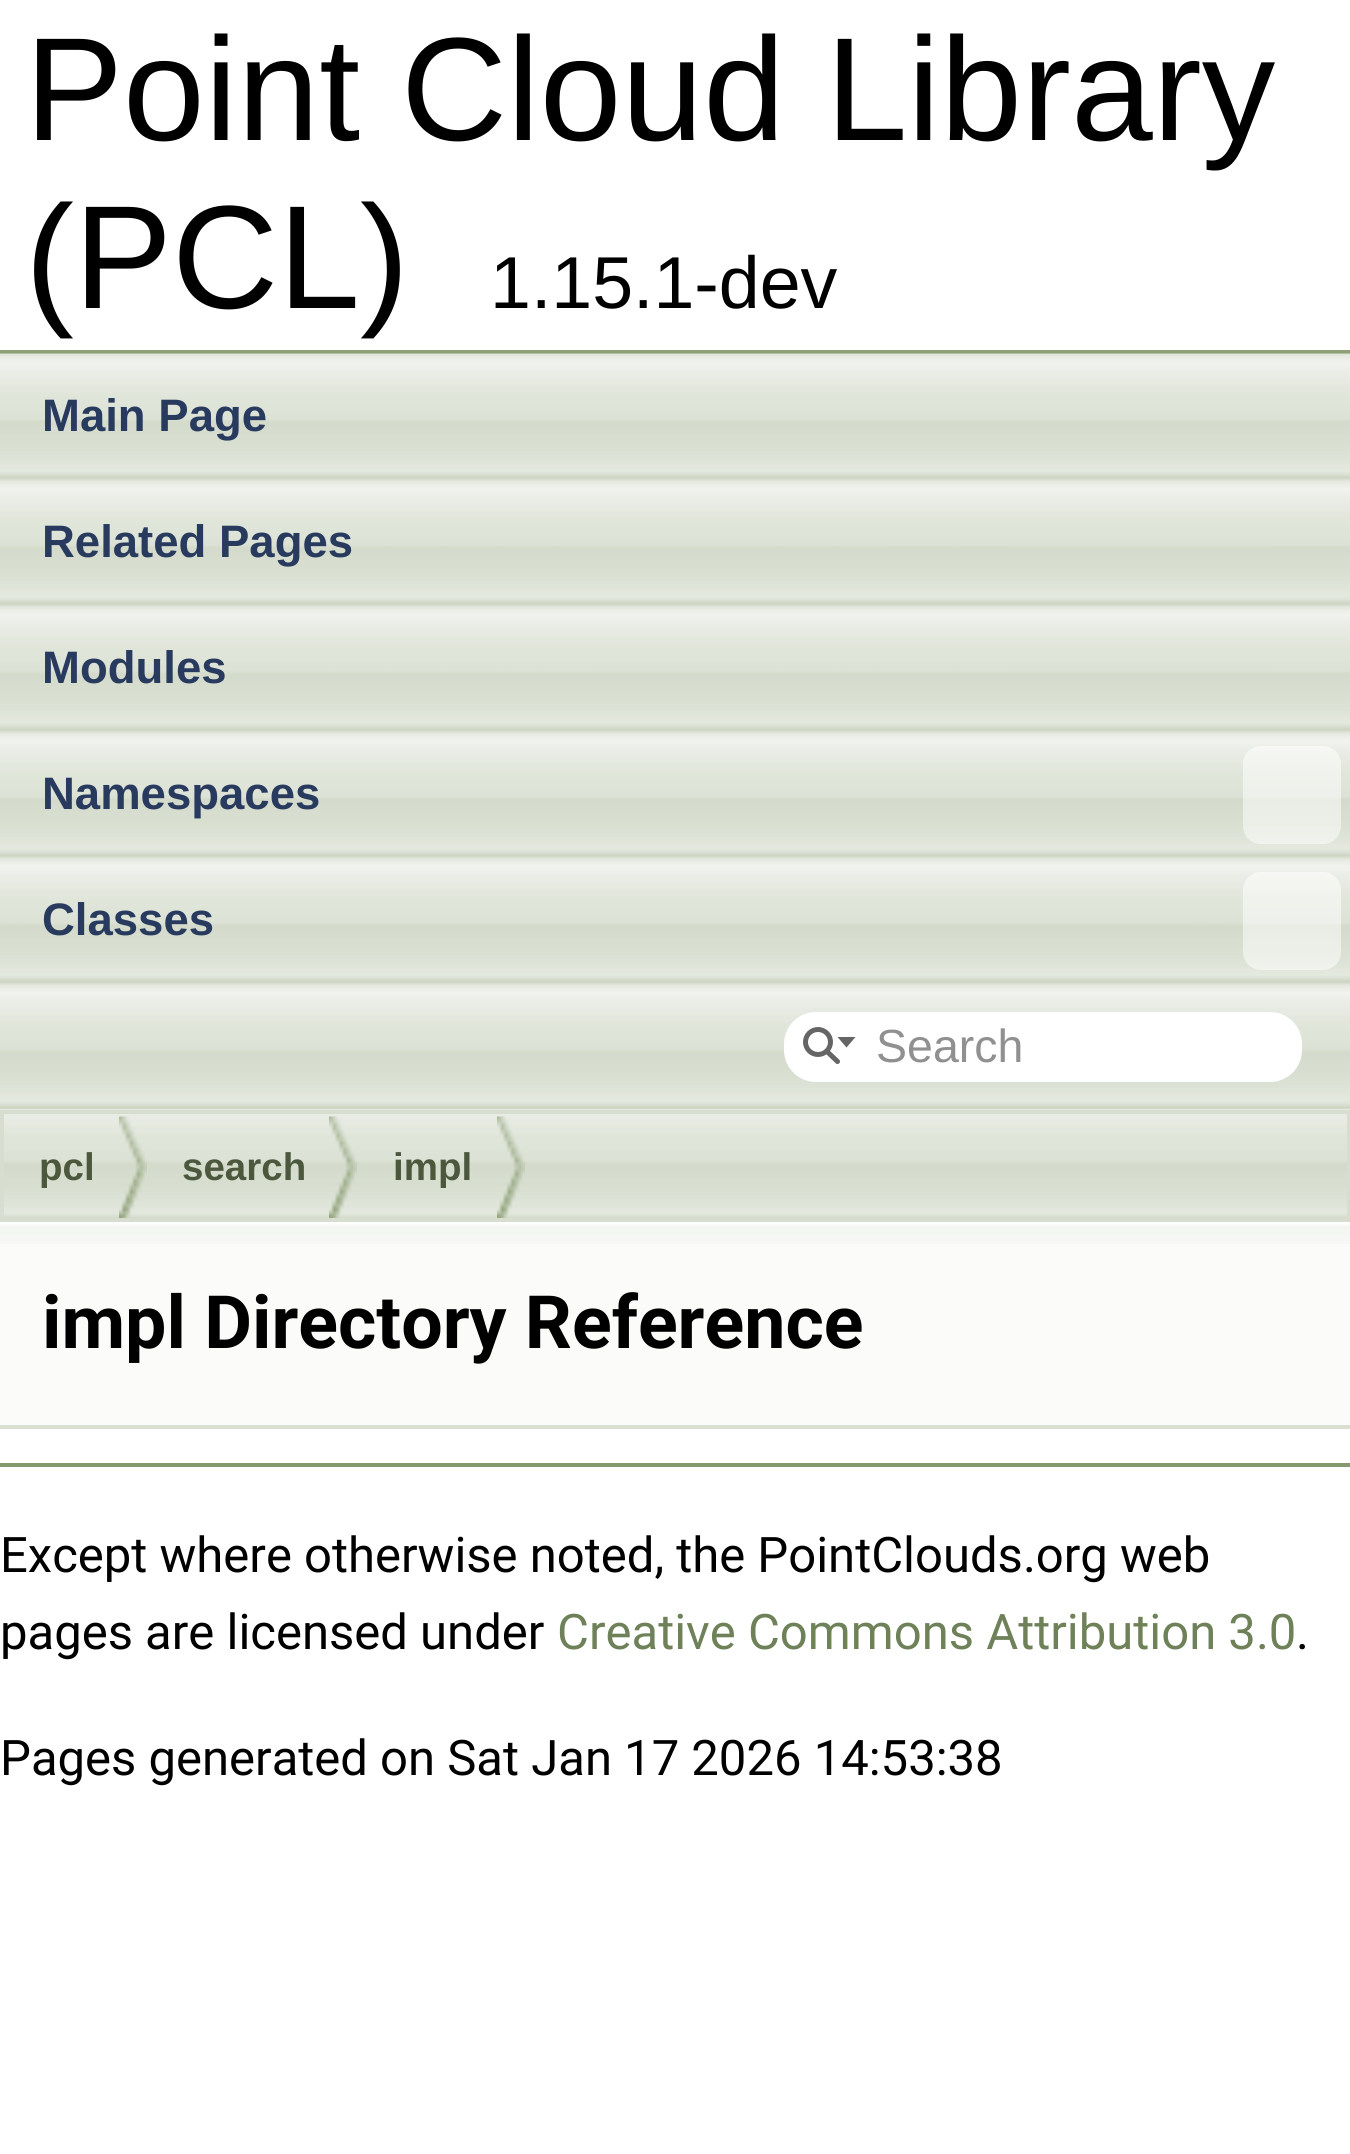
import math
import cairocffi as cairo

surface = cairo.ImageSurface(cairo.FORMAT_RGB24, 1350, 2154)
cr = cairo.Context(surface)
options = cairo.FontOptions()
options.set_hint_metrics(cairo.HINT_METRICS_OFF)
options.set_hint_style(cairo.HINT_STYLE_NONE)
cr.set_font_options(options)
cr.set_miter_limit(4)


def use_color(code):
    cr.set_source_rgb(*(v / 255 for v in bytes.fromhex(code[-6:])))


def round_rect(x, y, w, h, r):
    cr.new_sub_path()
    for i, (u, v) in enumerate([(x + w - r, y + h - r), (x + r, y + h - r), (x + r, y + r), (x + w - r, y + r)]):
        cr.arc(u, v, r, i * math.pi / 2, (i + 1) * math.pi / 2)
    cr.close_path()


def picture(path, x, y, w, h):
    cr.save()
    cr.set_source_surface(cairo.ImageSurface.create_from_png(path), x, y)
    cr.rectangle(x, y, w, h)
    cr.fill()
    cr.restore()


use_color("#ffffff")
cr.paint()
use_color("#8da077")
cr.rectangle(0, 350, 1350, 4)
cr.fill()
cr.select_font_face("Liberation Sans")
cr.set_font_size(147)
use_color("#000000")
cr.move_to(25, 140)
cr.show_text("Point Cloud Library")
cr.move_to(25, 308)
cr.show_text("(PCL)")
cr.set_font_size(73.5)
cr.move_to(490, 308)
cr.show_text("1.15.1-dev")
picture("img2.png", 0, 1109, 1350, 109)
picture("img1.png", 0, 353, 1350, 757)
cr.select_font_face("Liberation Sans", cairo.FONT_SLANT_NORMAL, cairo.FONT_WEIGHT_BOLD)
cr.set_font_size(45.5)
use_color("#283a5d")
cr.move_to(42, 431)
cr.show_text("Main Page")
cr.move_to(42, 557)
cr.show_text("Related Pages")
cr.move_to(42, 683)
cr.show_text("Modules")
cr.move_to(42, 809)
cr.show_text("Namespaces")
cr.set_source_rgba(1, 1, 1, 0.5)
round_rect(1243, 746, 98, 98, 18)
cr.fill()
use_color("#283a5d")
cr.move_to(42, 935)
cr.show_text("Classes")
cr.set_source_rgba(1, 1, 1, 0.5)
round_rect(1243, 872, 98, 98, 18)
cr.fill()
use_color("#ffffff")
round_rect(784, 1012, 518, 70, 32)
cr.fill()
cr.arc(818, 1042, 12.5, 0, 2 * math.pi)
use_color("#656565")
cr.set_line_width(5)
cr.stroke()
cr.new_path()
cr.move_to(837.5, 1037)
cr.line_to(846.5, 1047.5)
cr.line_to(855.5, 1037)
cr.close_path()
cr.fill()
cr.new_path()
cr.move_to(827, 1051.5)
cr.line_to(837.5, 1061.5)
cr.set_line_cap(cairo.LINE_CAP_ROUND)
cr.stroke()
cr.select_font_face("Liberation Sans")
cr.set_font_size(46.5)
use_color("#909090")
cr.move_to(876, 1062)
cr.show_text("Search")
cr.rectangle(2, 1112, 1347, 108)
use_color("#d7decf")
cr.set_line_width(4)
cr.set_line_cap(cairo.LINE_CAP_BUTT)
cr.stroke()
picture("img3.png", 119, 1116, 28, 102)
cr.select_font_face("Liberation Sans", cairo.FONT_SLANT_NORMAL, cairo.FONT_WEIGHT_BOLD)
cr.set_font_size(38.5)
use_color("#4c583d")
cr.move_to(39, 1180)
cr.show_text("pcl")
picture("img3.png", 329, 1116, 28, 102)
cr.move_to(182, 1180)
cr.show_text("search")
picture("img3.png", 497, 1116, 28, 102)
cr.move_to(393, 1180)
cr.show_text("impl")
use_color("#fbfcfa")
cr.rectangle(0, 1244, 1350, 181)
cr.fill()
picture("img4.png", 0, 1222, 1350, 22)
use_color("#d9dfd1")
cr.rectangle(0, 1425, 1350, 4)
cr.fill()
cr.select_font_face("Roboto", cairo.FONT_SLANT_NORMAL, cairo.FONT_WEIGHT_BOLD)
cr.set_font_size(73.5)
use_color("#000000")
cr.move_to(42, 1348)
cr.show_text("impl Directory Reference")
use_color("#84996c")
cr.rectangle(0, 1463, 1350, 4)
cr.fill()
cr.select_font_face("Roboto")
cr.set_font_size(49)
use_color("#000000")
cr.move_to(0, 1572)
cr.show_text("Except where otherwise noted, the PointClouds.org web")
cr.move_to(0, 1649)
cr.show_text("pages are licensed under")
use_color("#6f8159")
cr.move_to(557, 1649)
cr.show_text("Creative Commons Attribution 3.0")
use_color("#000000")
cr.move_to(1296, 1649)
cr.show_text(".")
cr.move_to(0, 1775)
cr.show_text("Pages generated on Sat Jan 17 2026 14:53:38")
surface.write_to_png("result.png")
